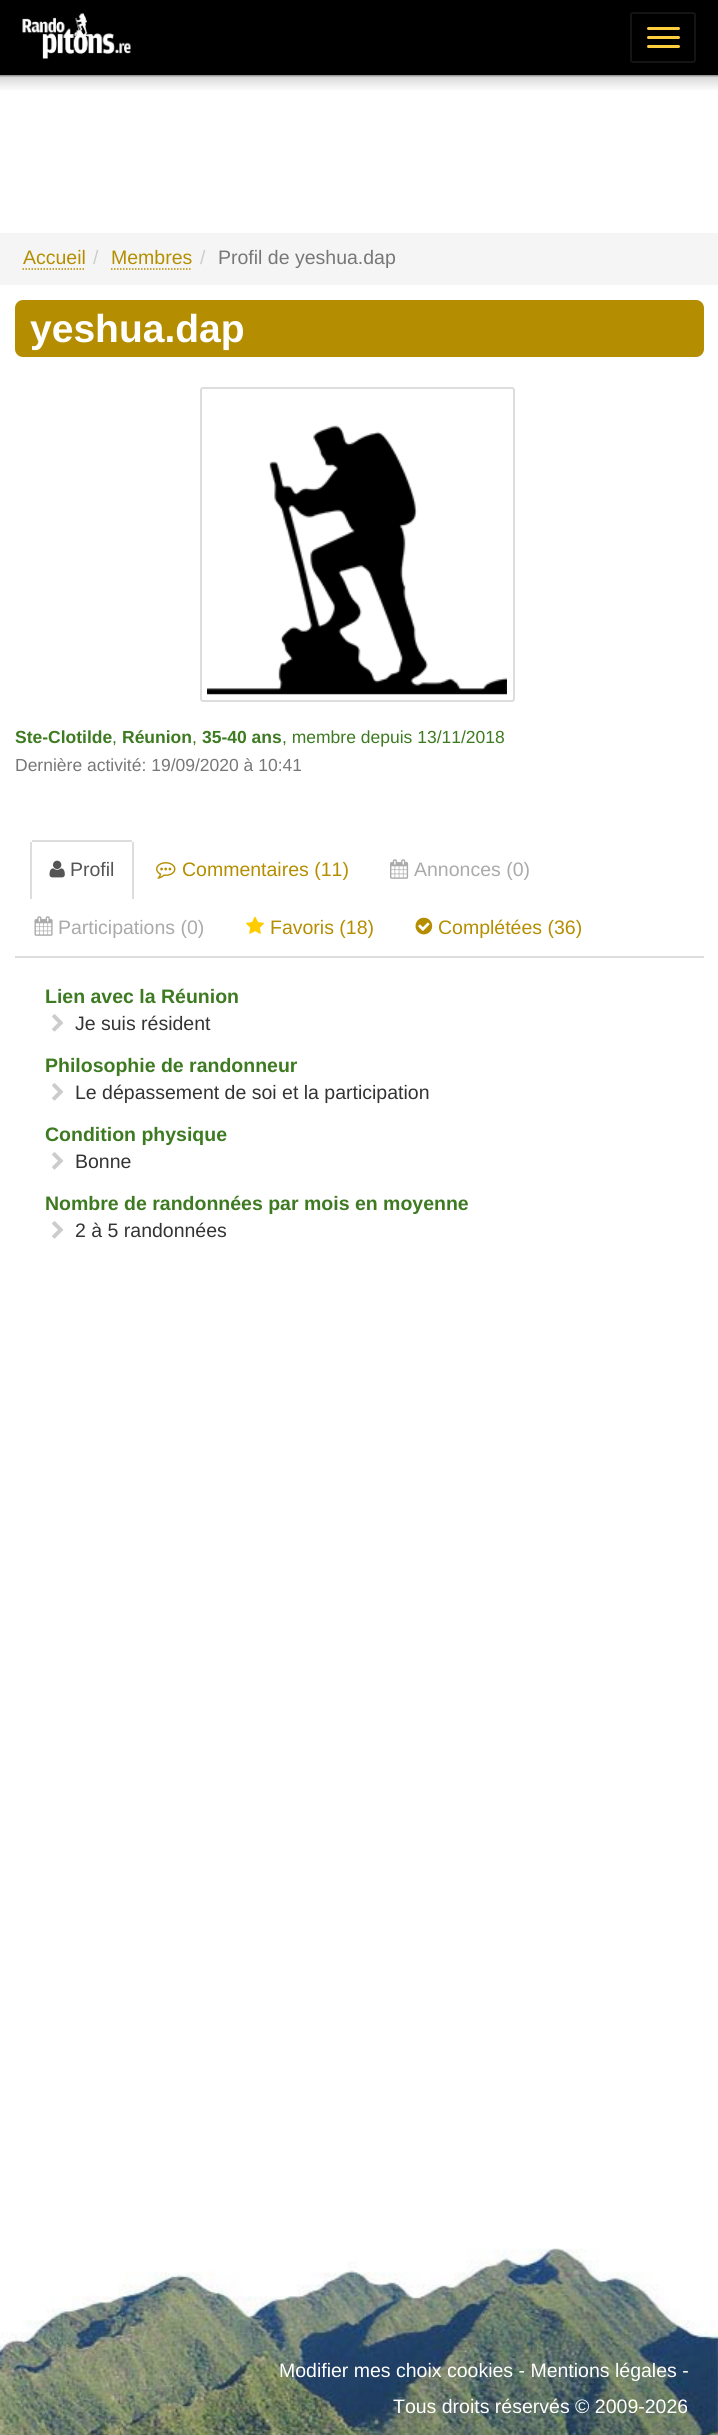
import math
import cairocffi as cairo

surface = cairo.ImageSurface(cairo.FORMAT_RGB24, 718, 2435)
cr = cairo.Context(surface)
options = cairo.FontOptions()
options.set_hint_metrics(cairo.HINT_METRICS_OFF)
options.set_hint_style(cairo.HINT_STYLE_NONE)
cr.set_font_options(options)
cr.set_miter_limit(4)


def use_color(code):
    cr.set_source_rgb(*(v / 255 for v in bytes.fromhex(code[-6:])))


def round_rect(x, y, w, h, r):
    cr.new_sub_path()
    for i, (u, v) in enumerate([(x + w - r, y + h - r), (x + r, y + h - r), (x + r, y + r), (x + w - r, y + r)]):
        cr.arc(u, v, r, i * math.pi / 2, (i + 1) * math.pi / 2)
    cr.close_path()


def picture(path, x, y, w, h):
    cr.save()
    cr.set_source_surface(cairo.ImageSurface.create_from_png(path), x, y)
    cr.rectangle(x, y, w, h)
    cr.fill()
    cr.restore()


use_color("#ffffff")
cr.paint()
use_color("#000000")
cr.rectangle(0, 0, 718, 75)
cr.fill()
picture("img1.png", 22, 13, 109, 46)
round_rect(631, 13, 64, 49, 2)
use_color("#141414")
cr.stroke()
use_color("#ffce3c")
round_rect(647, 27, 33, 3, 1.5)
cr.fill()
round_rect(647, 36, 33, 3, 1.5)
cr.fill()
round_rect(647, 45, 33, 3, 1.5)
cr.fill()
picture("img2.png", 0, 75, 718, 15)
use_color("#f5f5f5")
cr.rectangle(0, 233, 718, 52)
cr.fill()
cr.select_font_face("Liberation Sans")
cr.set_font_size(19.5)
use_color("#b48e00")
cr.move_to(23, 264)
cr.show_text("Accueil")
cr.new_path()
cr.move_to(22.5, 269)
cr.line_to(85.5, 269)
cr.set_line_width(1.5)
cr.set_dash([1.5, 1.5])
cr.stroke()
use_color("#cccccc")
cr.move_to(93, 264)
cr.show_text("/")
use_color("#b48e00")
cr.move_to(111, 264)
cr.show_text("Membres")
cr.new_path()
cr.move_to(111, 269)
cr.line_to(192, 269)
cr.stroke()
use_color("#cccccc")
cr.move_to(200, 264)
cr.show_text("/")
use_color("#777777")
cr.move_to(218, 264)
cr.show_text("Profil de yeshua.dap")
use_color("#b48e00")
round_rect(15, 300, 689, 57, 8)
cr.fill()
cr.select_font_face("Liberation Sans", cairo.FONT_SLANT_NORMAL, cairo.FONT_WEIGHT_BOLD)
cr.set_font_size(39)
use_color("#ffffff")
cr.move_to(30, 342)
cr.show_text("yeshua.dap")
round_rect(201, 388, 313, 313, 2)
use_color("#dddddd")
cr.set_line_width(2)
cr.set_dash([])
cr.stroke()
picture("img3.png", 207, 425, 300, 270)
cr.set_font_size(17.5)
use_color("#3d7a21")
cr.move_to(15, 743)
cr.show_text("Ste-Clotilde")
cr.select_font_face("Liberation Sans")
cr.move_to(112, 743)
cr.show_text(",")
cr.select_font_face("Liberation Sans", cairo.FONT_SLANT_NORMAL, cairo.FONT_WEIGHT_BOLD)
cr.move_to(122, 743)
cr.show_text("Réunion")
cr.select_font_face("Liberation Sans")
cr.move_to(192, 743)
cr.show_text(",")
cr.select_font_face("Liberation Sans", cairo.FONT_SLANT_NORMAL, cairo.FONT_WEIGHT_BOLD)
cr.move_to(202, 743)
cr.show_text("35-40 ans")
cr.select_font_face("Liberation Sans")
cr.move_to(282, 743)
cr.show_text(", membre depuis 13/11/2018")
use_color("#777777")
cr.move_to(15, 771)
cr.show_text("Dernière activité: 19/09/2020 à 10:41")
use_color("#dddddd")
cr.rectangle(15, 956, 689, 2)
cr.fill()
cr.rectangle(32, 840, 100, 2)
cr.fill()
cr.rectangle(132, 842, 2, 57)
cr.fill()
cr.rectangle(30, 842, 2, 57)
cr.fill()
picture("img4.png", 49, 860, 16, 18)
cr.set_font_size(19.5)
use_color("#555555")
cr.move_to(70, 876)
cr.show_text("Profil")
picture("img5.png", 156, 862, 20, 17)
use_color("#b48e00")
cr.move_to(182, 876)
cr.show_text("Commentaires (11)")
picture("img6.png", 390, 859, 19, 20)
use_color("#aaaaaa")
cr.move_to(414, 876)
cr.show_text("Annonces (0)")
picture("img7.png", 34, 916, 19, 20)
cr.move_to(58, 934)
cr.show_text("Participations (0)")
picture("img8.png", 246, 916, 19, 18)
use_color("#b48e00")
cr.move_to(270, 934)
cr.show_text("Favoris (18)")
picture("img9.png", 415, 917, 18, 18)
cr.move_to(438, 934)
cr.show_text("Complétées (36)")
cr.select_font_face("Liberation Sans", cairo.FONT_SLANT_NORMAL, cairo.FONT_WEIGHT_BOLD)
use_color("#3d7a21")
cr.move_to(45, 1003)
cr.show_text("Lien avec la Réunion")
picture("img10.png", 52, 1014, 12, 18)
cr.select_font_face("Liberation Sans")
use_color("#333333")
cr.move_to(75, 1030)
cr.show_text("Je suis résident")
cr.select_font_face("Liberation Sans", cairo.FONT_SLANT_NORMAL, cairo.FONT_WEIGHT_BOLD)
use_color("#3d7a21")
cr.move_to(45, 1072)
cr.show_text("Philosophie de randonneur")
picture("img10.png", 52, 1083, 12, 18)
cr.select_font_face("Liberation Sans")
use_color("#333333")
cr.move_to(75, 1099)
cr.show_text("Le dépassement de soi et la participation")
cr.select_font_face("Liberation Sans", cairo.FONT_SLANT_NORMAL, cairo.FONT_WEIGHT_BOLD)
use_color("#3d7a21")
cr.move_to(45, 1141)
cr.show_text("Condition physique")
picture("img10.png", 52, 1152, 12, 18)
cr.select_font_face("Liberation Sans")
use_color("#333333")
cr.move_to(75, 1168)
cr.show_text("Bonne")
cr.select_font_face("Liberation Sans", cairo.FONT_SLANT_NORMAL, cairo.FONT_WEIGHT_BOLD)
use_color("#3d7a21")
cr.move_to(45, 1210)
cr.show_text("Nombre de randonnées par mois en moyenne")
picture("img10.png", 52, 1221, 12, 18)
cr.select_font_face("Liberation Sans")
use_color("#333333")
cr.move_to(75, 1237)
cr.show_text("2 à 5 randonnées")
picture("img11.png", 0, 2248, 718, 187)
use_color("#ffffff")
cr.move_to(279, 2377)
cr.show_text("Modifier mes choix cookies - Mentions légales -")
cr.move_to(393, 2413)
cr.show_text("Tous droits réservés © 2009-2026")
surface.write_to_png("result.png")
